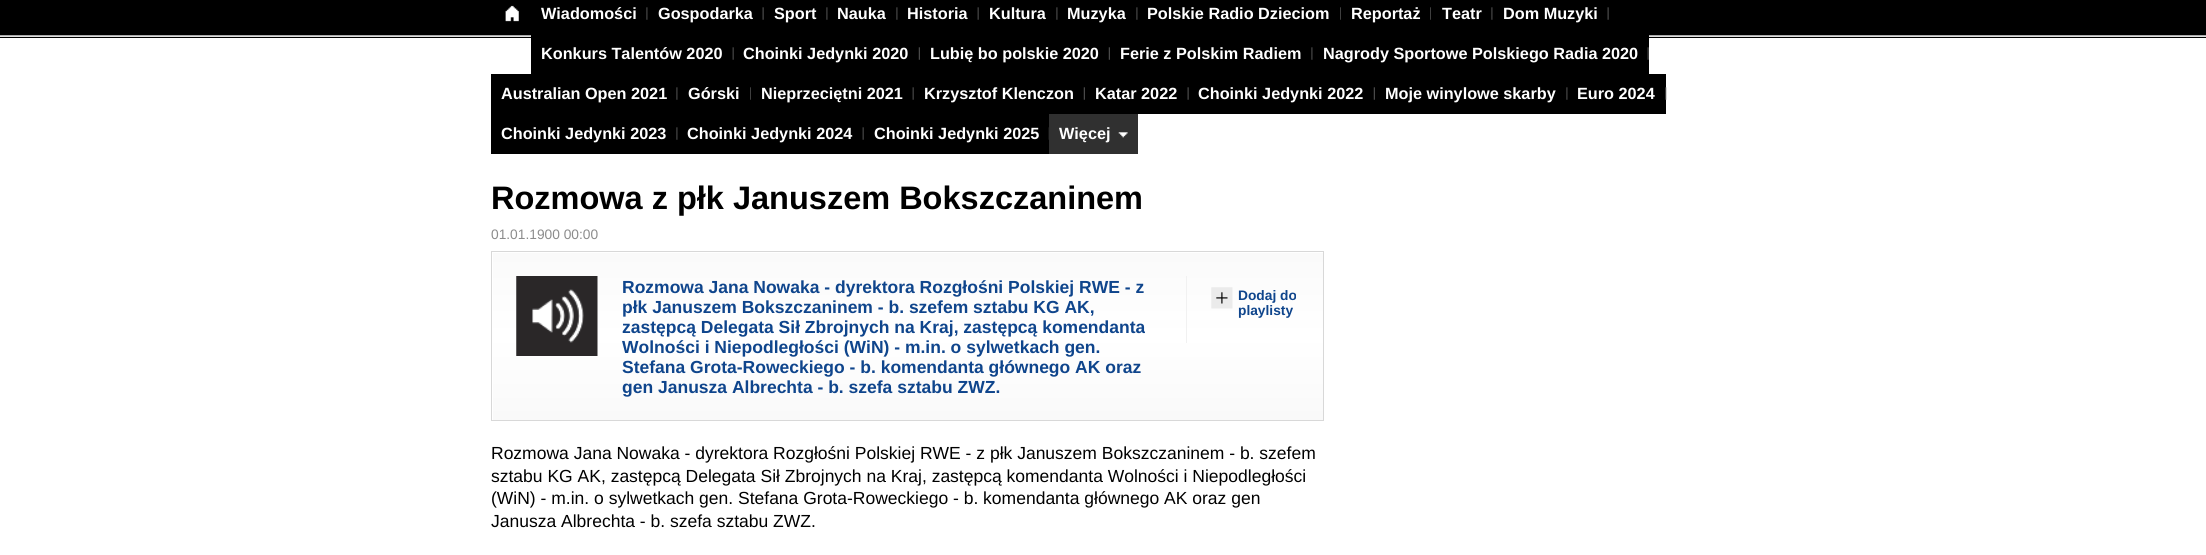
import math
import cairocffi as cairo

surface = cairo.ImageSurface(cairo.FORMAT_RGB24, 2206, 555)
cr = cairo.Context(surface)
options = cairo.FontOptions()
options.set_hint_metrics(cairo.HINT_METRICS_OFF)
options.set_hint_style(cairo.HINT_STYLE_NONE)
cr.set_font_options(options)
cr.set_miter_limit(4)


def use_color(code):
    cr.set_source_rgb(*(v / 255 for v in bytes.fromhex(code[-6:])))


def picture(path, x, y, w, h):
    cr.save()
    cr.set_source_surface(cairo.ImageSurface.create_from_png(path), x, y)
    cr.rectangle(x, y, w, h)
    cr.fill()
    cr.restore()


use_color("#ffffff")
cr.paint()
use_color("#000000")
cr.rectangle(0, 0, 2206, 38)
cr.fill()
use_color("#aaaaaa")
cr.rectangle(0, 35, 2206, 1)
cr.fill()
use_color("#e0e0e0")
cr.rectangle(0, 36, 2206, 1)
cr.fill()
picture("img1.png", 505, 5, 14, 17)
picture("img2.png", 646, 7, 2, 13)
cr.select_font_face("Liberation Sans", cairo.FONT_SLANT_NORMAL, cairo.FONT_WEIGHT_BOLD)
cr.set_font_size(16.25)
use_color("#ffffff")
cr.move_to(541, 19)
cr.show_text("Wiadomości")
picture("img3.png", 762, 7, 2, 13)
cr.move_to(658, 19)
cr.show_text("Gospodarka")
picture("img2.png", 826, 7, 2, 13)
cr.move_to(774, 19)
cr.show_text("Sport")
picture("img2.png", 896, 7, 2, 13)
cr.move_to(837, 19)
cr.show_text("Nauka")
picture("img4.png", 977, 7, 2, 13)
cr.move_to(907, 19)
cr.show_text("Historia")
picture("img2.png", 1056, 7, 2, 13)
cr.move_to(989, 19)
cr.show_text("Kultura")
picture("img2.png", 1136, 7, 2, 13)
cr.move_to(1067, 19)
cr.show_text("Muzyka")
picture("img5.png", 1340, 7, 1, 13)
cr.move_to(1147, 19)
cr.show_text("Polskie Radio Dzieciom")
picture("img5.png", 1430, 7, 1, 13)
cr.move_to(1351, 19)
cr.show_text("Reportaż")
picture("img2.png", 1491, 7, 2, 13)
cr.move_to(1442, 19)
cr.show_text("Teatr")
picture("img3.png", 1607, 7, 2, 13)
cr.move_to(1503, 19)
cr.show_text("Dom Muzyki")
use_color("#000000")
cr.rectangle(531, 35, 1118, 39)
cr.fill()
picture("img4.png", 732, 47, 2, 13)
use_color("#ffffff")
cr.move_to(541, 59)
cr.show_text("Konkurs Talentów 2020")
picture("img6.png", 918, 47, 2, 13)
cr.move_to(743, 59)
cr.show_text("Choinki Jedynki 2020")
picture("img6.png", 1108, 47, 2, 13)
cr.move_to(930, 59)
cr.show_text("Lubię bo polskie 2020")
picture("img2.png", 1311, 47, 2, 13)
cr.move_to(1120, 59)
cr.show_text("Ferie z Polskim Radiem")
picture("img3.png", 1647, 47, 2, 13)
cr.move_to(1323, 59)
cr.show_text("Nagrody Sportowe Polskiego Radia 2020")
use_color("#000000")
cr.rectangle(491, 74, 1175, 40)
cr.fill()
picture("img2.png", 676, 87, 2, 13)
use_color("#ffffff")
cr.move_to(501, 99)
cr.show_text("Australian Open 2021")
picture("img5.png", 750, 87, 1, 13)
cr.move_to(688, 99)
cr.show_text("Górski")
picture("img4.png", 912, 87, 2, 13)
cr.move_to(761, 99)
cr.show_text("Nieprzeciętni 2021")
picture("img6.png", 1083, 87, 2, 13)
cr.move_to(924, 99)
cr.show_text("Krzysztof Klenczon")
picture("img3.png", 1187, 87, 2, 13)
cr.move_to(1095, 99)
cr.show_text("Katar 2022")
picture("img6.png", 1373, 87, 2, 13)
cr.move_to(1198, 99)
cr.show_text("Choinki Jedynki 2022")
picture("img2.png", 1566, 87, 2, 13)
cr.move_to(1385, 99)
cr.show_text("Moje winylowe skarby")
picture("img7.png", 1665, 87, 2, 13)
cr.move_to(1577, 99)
cr.show_text("Euro 2024")
use_color("#000000")
cr.rectangle(491, 114, 558, 40)
cr.fill()
picture("img2.png", 676, 127, 2, 13)
use_color("#ffffff")
cr.move_to(501, 139)
cr.show_text("Choinki Jedynki 2023")
picture("img4.png", 862, 127, 2, 13)
cr.move_to(687, 139)
cr.show_text("Choinki Jedynki 2024")
picture("img8.png", 1048, 127, 1, 13)
cr.move_to(874, 139)
cr.show_text("Choinki Jedynki 2025")
use_color("#303030")
cr.rectangle(1049, 114, 89, 40)
cr.fill()
picture("img9.png", 1118, 132, 10, 6)
use_color("#ffffff")
cr.move_to(1059, 139)
cr.show_text("Więcej")
cr.set_font_size(32.5)
use_color("#000000")
cr.move_to(491, 209)
cr.show_text("Rozmowa z płk Januszem Bokszczaninem")
cr.select_font_face("Liberation Sans")
cr.set_font_size(13.75)
use_color("#8c8c8c")
cr.move_to(491, 239)
cr.show_text("01.01.1900 00:00")
cr.rectangle(491.5, 251.5, 832, 169)
use_color("#d8d8d8")
cr.set_line_width(1)
cr.stroke()
gradient = cairo.LinearGradient(908, 252, 908, 420)
gradient.add_color_stop_rgba(0, 0.98, 0.98, 0.98, 1)
gradient.add_color_stop_rgba(0.5, 1, 1, 1, 1)
gradient.add_color_stop_rgba(1, 0.976, 0.976, 0.976, 1)
cr.set_source(gradient)
cr.rectangle(493, 253, 830, 167)
cr.fill()
picture("img10.png", 516, 276, 82, 80)
cr.select_font_face("Liberation Sans", cairo.FONT_SLANT_NORMAL, cairo.FONT_WEIGHT_BOLD)
cr.set_font_size(17.5)
use_color("#0f458c")
cr.move_to(622, 293)
cr.show_text("Rozmowa Jana Nowaka - dyrektora Rozgłośni Polskiej RWE - z")
cr.move_to(622, 313)
cr.show_text("płk Januszem Bokszczaninem - b. szefem sztabu KG AK,")
cr.move_to(622, 333)
cr.show_text("zastępcą Delegata Sił Zbrojnych na Kraj, zastępcą komendanta")
cr.move_to(622, 353)
cr.show_text("Wolności i Niepodległości (WiN) - m.in. o sylwetkach gen.")
cr.move_to(622, 373)
cr.show_text("Stefana Grota-Roweckiego - b. komendanta głównego AK oraz")
cr.move_to(622, 393)
cr.show_text("gen Janusza Albrechta - b. szefa sztabu ZWZ.")
use_color("#f1f1f1")
cr.rectangle(1186, 276, 1, 67)
cr.fill()
picture("img11.png", 1211, 287, 22, 22)
cr.set_font_size(13.75)
use_color("#0f458c")
cr.move_to(1238, 300)
cr.show_text("Dodaj do")
cr.move_to(1238, 315)
cr.show_text("playlisty")
cr.select_font_face("Liberation Sans")
cr.set_font_size(17.5)
use_color("#000000")
cr.move_to(491, 459)
cr.show_text("Rozmowa Jana Nowaka - dyrektora Rozgłośni Polskiej RWE - z płk Januszem Bokszczaninem - b. szefem")
cr.move_to(491, 482)
cr.show_text("sztabu KG AK, zastępcą Delegata Sił Zbrojnych na Kraj, zastępcą komendanta Wolności i Niepodległości")
cr.move_to(491, 504)
cr.show_text("(WiN) - m.in. o sylwetkach gen. Stefana Grota-Roweckiego - b. komendanta głównego AK oraz gen")
cr.move_to(491, 527)
cr.show_text("Janusza Albrechta - b. szefa sztabu ZWZ.")
surface.write_to_png("result.png")
